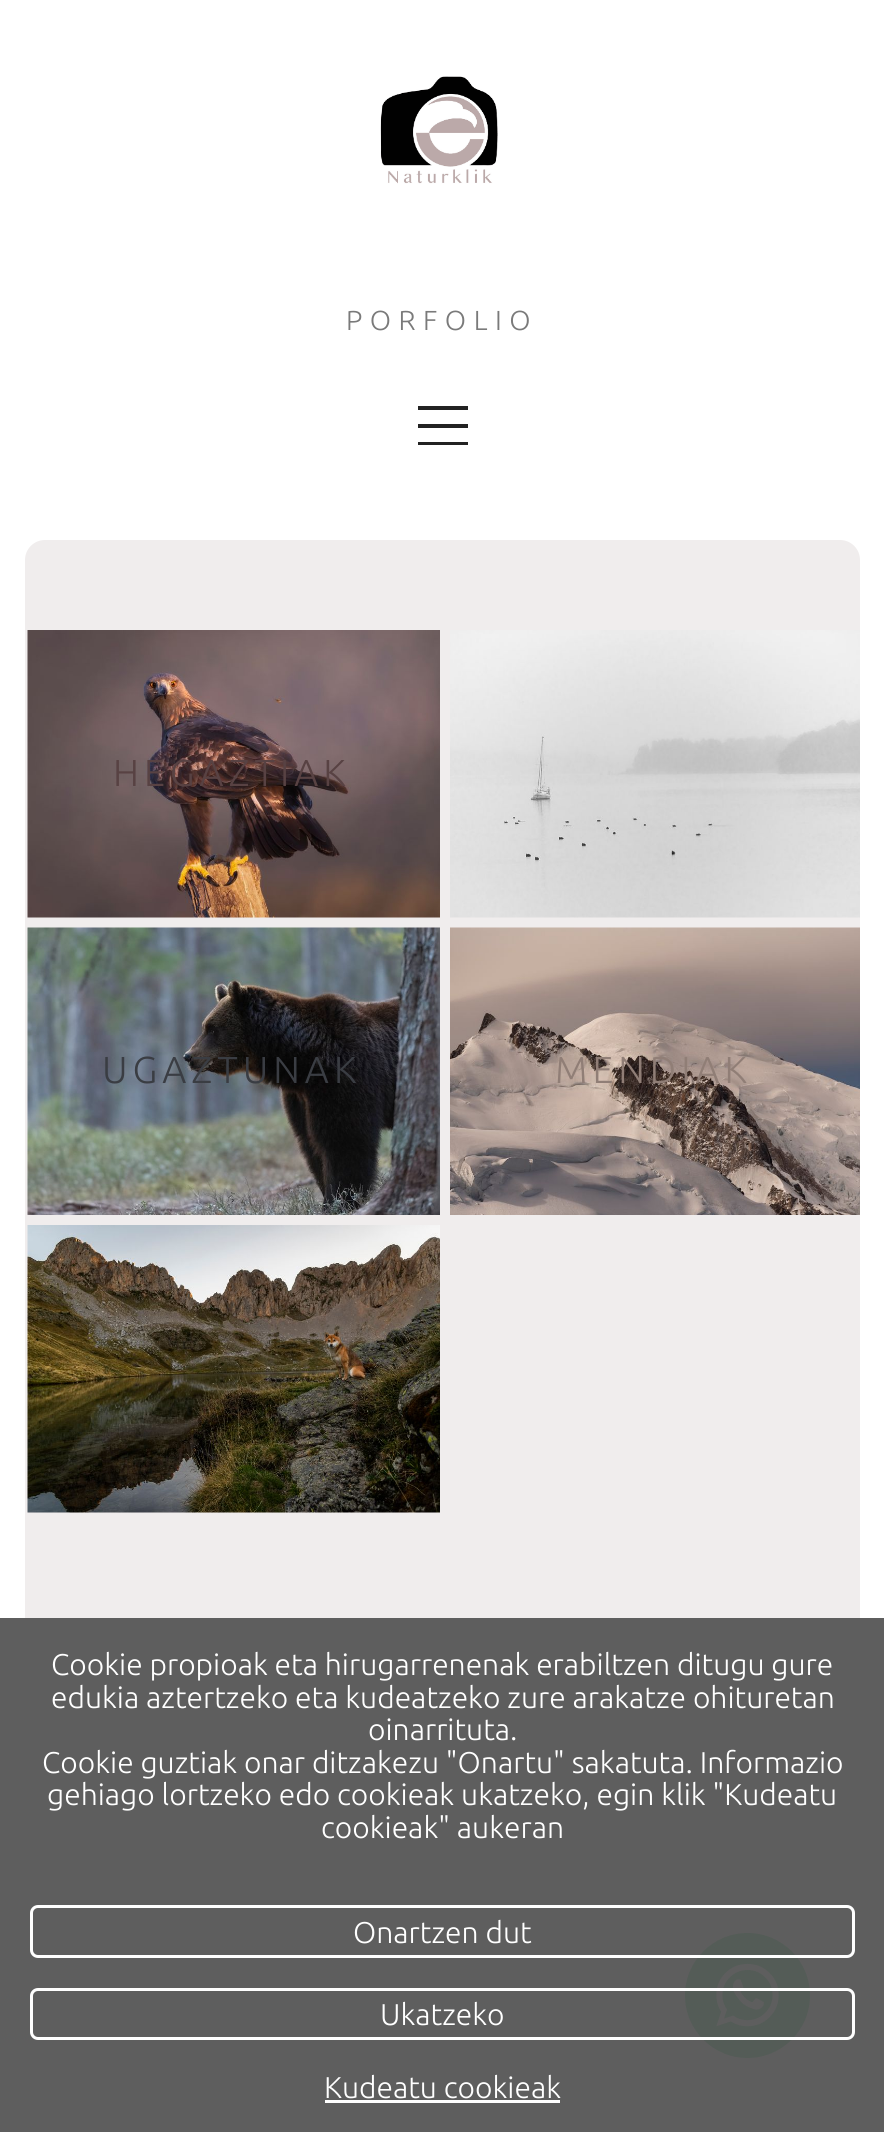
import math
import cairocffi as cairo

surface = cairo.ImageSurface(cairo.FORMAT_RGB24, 884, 2132)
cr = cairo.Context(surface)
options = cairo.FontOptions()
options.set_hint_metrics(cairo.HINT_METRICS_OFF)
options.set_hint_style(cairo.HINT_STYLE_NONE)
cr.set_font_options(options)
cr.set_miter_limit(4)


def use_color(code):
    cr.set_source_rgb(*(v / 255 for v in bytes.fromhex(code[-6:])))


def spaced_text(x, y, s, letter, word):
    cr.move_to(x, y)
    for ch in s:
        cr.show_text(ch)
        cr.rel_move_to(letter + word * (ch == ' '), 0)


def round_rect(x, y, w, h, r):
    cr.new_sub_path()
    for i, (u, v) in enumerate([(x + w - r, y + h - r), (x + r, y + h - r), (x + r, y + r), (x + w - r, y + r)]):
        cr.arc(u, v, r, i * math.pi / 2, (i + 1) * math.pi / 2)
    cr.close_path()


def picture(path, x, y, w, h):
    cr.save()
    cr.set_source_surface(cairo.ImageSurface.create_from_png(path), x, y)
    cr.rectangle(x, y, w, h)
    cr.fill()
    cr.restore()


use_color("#ffffff")
cr.paint()
use_color("#5e5e5e")
cr.rectangle(0, 1618, 884, 514)
cr.fill()
picture("img1.png", 380, 76, 118, 108)
cr.select_font_face("Ubuntu Light")
cr.set_font_size(27.5)
use_color("#7a7a7a")
spaced_text(346, 330, "PORFOLIO", 7.5, 0)
use_color("#222222")
cr.new_path()
cr.move_to(468, 424)
cr.line_to(468, 428)
cr.line_to(418, 428)
cr.line_to(418, 424)
cr.close_path()
cr.move_to(468, 442)
cr.line_to(468, 445)
cr.line_to(418, 445)
cr.line_to(418, 442)
cr.close_path()
cr.move_to(468, 406)
cr.line_to(468, 410)
cr.line_to(418, 410)
cr.line_to(418, 406)
cr.close_path()
cr.fill()
use_color("#f0eded")
round_rect(25, 540, 835, 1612, 20)
cr.fill()
use_color("#5e5e5e")
cr.rectangle(25, 1618, 835, 514)
cr.fill()
picture("img2.png", 27, 630, 413, 288)
cr.set_font_size(37.5)
use_color("#584243")
spaced_text(113, 786, "HEGAZTIAK", 5, 0)
picture("img3.png", 450, 630, 410, 288)
picture("img4.png", 27, 927, 413, 288)
use_color("#3a3d43")
spaced_text(102, 1083, "UGAZTUNAK", 5, 0)
picture("img5.png", 450, 927, 410, 288)
use_color("#907e76")
spaced_text(555, 1083, "MENDIAK", 5, 0)
picture("img6.png", 27, 1225, 413, 288)
cr.set_font_size(30)
use_color("#ffffff")
cr.move_to(51, 1675)
cr.show_text("Cookie propioak eta hirugarrenenak erabiltzen ditugu gure")
cr.move_to(51, 1708)
cr.show_text("edukia aztertzeko eta kudeatzeko zure arakatze ohituretan")
cr.move_to(368, 1740)
cr.show_text("oinarrituta.")
cr.move_to(42, 1773)
cr.show_text("Cookie guztiak onar ditzakezu \"Onartu\" sakatuta. Informazio")
cr.move_to(47, 1805)
cr.show_text("gehiago lortzeko edo cookieak ukatzeko, egin klik \"Kudeatu")
cr.move_to(321, 1838)
cr.show_text("cookieak\" aukeran")
use_color("#545c57")
cr.new_path()
cr.arc(747.5, 1995.5, 62.5, 0, 2 * math.pi)
cr.fill()
round_rect(31.5, 1906.5, 822, 50, 6.5)
use_color("#ffffff")
cr.set_line_width(3)
cr.stroke()
cr.move_to(353, 1943)
cr.show_text("Onartzen dut")
picture("img7.png", 716, 1963, 63, 64)
round_rect(31.5, 1989.5, 822, 49, 6.5)
cr.stroke()
cr.move_to(380, 2025)
cr.show_text("Ukatzeko")
cr.move_to(324, 2098)
cr.show_text("Kudeatu cookieak")
cr.rectangle(325, 2100, 235, 3)
cr.fill()
surface.write_to_png("result.png")
